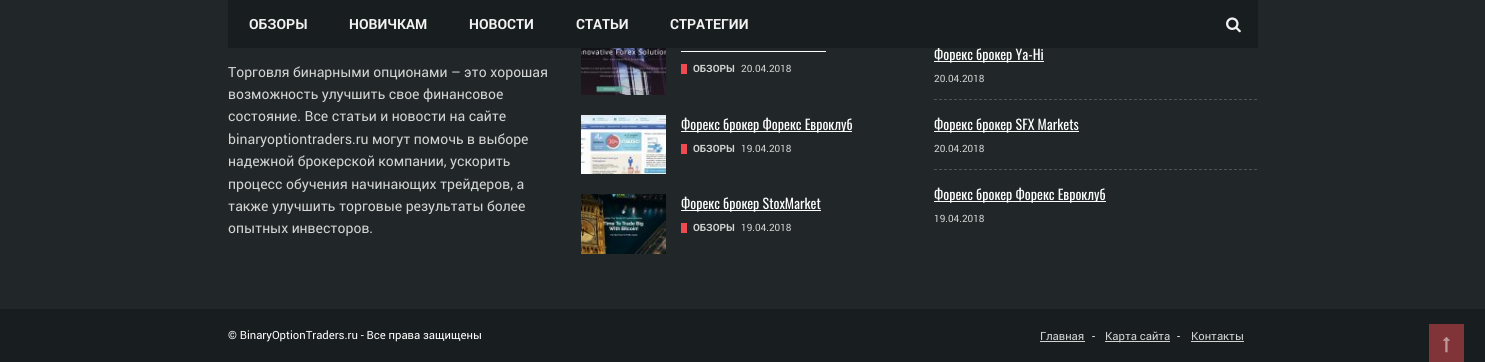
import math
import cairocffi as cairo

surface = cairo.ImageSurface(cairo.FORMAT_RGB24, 1485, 362)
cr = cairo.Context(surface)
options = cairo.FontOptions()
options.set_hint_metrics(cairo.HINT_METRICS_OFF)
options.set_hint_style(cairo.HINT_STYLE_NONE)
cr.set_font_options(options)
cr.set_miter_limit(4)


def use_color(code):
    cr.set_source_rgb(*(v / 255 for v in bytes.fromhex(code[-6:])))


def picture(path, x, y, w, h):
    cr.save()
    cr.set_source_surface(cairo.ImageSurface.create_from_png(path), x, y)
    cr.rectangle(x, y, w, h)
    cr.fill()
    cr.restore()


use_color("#212728")
cr.paint()
use_color("#ffffff")
cr.rectangle(934, 61, 110, 1)
cr.fill()
cr.select_font_face("Oswald")
cr.set_font_size(14)
cr.move_to(934, 60)
cr.show_text("Форекс брокер Ya-Hi")
use_color("#181d1f")
cr.rectangle(228, 0, 1030, 48)
cr.fill()
cr.select_font_face("Roboto", cairo.FONT_SLANT_NORMAL, cairo.FONT_WEIGHT_BOLD)
use_color("#f2f2f2")
cr.move_to(249, 29)
cr.show_text("ОБЗОРЫ")
cr.move_to(349, 29)
cr.show_text("НОВИЧКАМ")
cr.move_to(469, 29)
cr.show_text("НОВОСТИ")
cr.move_to(576, 29)
cr.show_text("СТАТЬИ")
cr.move_to(670, 29)
cr.show_text("СТРАТЕГИИ")
picture("img1.png", 1226, 17, 15, 16)
cr.select_font_face("Roboto")
use_color("#d3d4d4")
cr.move_to(228, 77)
cr.show_text("Торговля бинарными опционами – это хорошая")
cr.move_to(228, 99)
cr.show_text("возможность улучшить свое финансовое")
cr.move_to(228, 121)
cr.show_text("состояние. Все статьи и новости на сайте")
cr.move_to(228, 144)
cr.show_text("binaryoptiontraders.ru могут помочь в выборе")
cr.move_to(228, 166)
cr.show_text("надежной брокерской компании, ускорить")
cr.move_to(228, 189)
cr.show_text("процесс обучения начинающих трейдеров, а")
cr.move_to(228, 211)
cr.show_text("также улучшить торговые результаты более")
cr.move_to(228, 233)
cr.show_text("опытных инвесторов.")
picture("img2.png", 581, 48, 85, 47)
use_color("#ffffff")
cr.rectangle(681, 51, 145, 1)
cr.fill()
use_color("#ec4c51")
cr.rectangle(681, 64, 6, 10)
cr.fill()
cr.select_font_face("Roboto", cairo.FONT_SLANT_NORMAL, cairo.FONT_WEIGHT_BOLD)
cr.set_font_size(10)
use_color("#d3d4d4")
cr.move_to(693, 72)
cr.show_text("ОБЗОРЫ")
cr.select_font_face("Roboto")
cr.move_to(741, 72)
cr.show_text("20.04.2018")
picture("img3.png", 581, 115, 85, 59)
use_color("#ffffff")
cr.rectangle(681, 131, 171, 1)
cr.fill()
cr.select_font_face("Oswald")
cr.set_font_size(14)
cr.move_to(681, 130)
cr.show_text("Форекс брокер Форекс Евроклуб")
use_color("#ec4c51")
cr.rectangle(681, 144, 6, 10)
cr.fill()
cr.select_font_face("Roboto", cairo.FONT_SLANT_NORMAL, cairo.FONT_WEIGHT_BOLD)
cr.set_font_size(10)
use_color("#d3d4d4")
cr.move_to(693, 152)
cr.show_text("ОБЗОРЫ")
cr.select_font_face("Roboto")
cr.move_to(741, 152)
cr.show_text("19.04.2018")
picture("img4.png", 581, 194, 85, 60)
use_color("#ffffff")
cr.rectangle(681, 210, 140, 1)
cr.fill()
cr.select_font_face("Oswald")
cr.set_font_size(14)
cr.move_to(681, 209)
cr.show_text("Форекс брокер StoxMarket")
use_color("#ec4c51")
cr.rectangle(681, 223, 6, 10)
cr.fill()
cr.select_font_face("Roboto", cairo.FONT_SLANT_NORMAL, cairo.FONT_WEIGHT_BOLD)
cr.set_font_size(10)
use_color("#d3d4d4")
cr.move_to(693, 231)
cr.show_text("ОБЗОРЫ")
cr.select_font_face("Roboto")
cr.move_to(741, 231)
cr.show_text("19.04.2018")
cr.new_path()
cr.move_to(934, 99.5)
cr.line_to(1257, 99.5)
use_color("#4d5253")
cr.set_line_width(1)
cr.set_dash([3, 2])
cr.stroke()
use_color("#d3d4d4")
cr.move_to(934, 82)
cr.show_text("20.04.2018")
cr.new_path()
cr.move_to(934, 169.5)
cr.line_to(1257, 169.5)
use_color("#4d5253")
cr.stroke()
use_color("#ffffff")
cr.rectangle(934, 131, 145, 1)
cr.fill()
cr.select_font_face("Oswald")
cr.set_font_size(14)
cr.move_to(934, 130)
cr.show_text("Форекс брокер SFX Markets")
cr.select_font_face("Roboto")
cr.set_font_size(10)
use_color("#d3d4d4")
cr.move_to(934, 152)
cr.show_text("20.04.2018")
use_color("#ffffff")
cr.rectangle(934, 201, 172, 1)
cr.fill()
cr.select_font_face("Oswald")
cr.set_font_size(14)
cr.move_to(934, 200)
cr.show_text("Форекс брокер Форекс Евроклуб")
cr.select_font_face("Roboto")
cr.set_font_size(10)
use_color("#d3d4d4")
cr.move_to(934, 222)
cr.show_text("19.04.2018")
use_color("#181d1f")
cr.rectangle(0, 309, 1485, 53)
cr.fill()
cr.set_font_size(11.3)
use_color("#ffffff")
cr.move_to(228, 339)
cr.show_text("© BinaryOptionTraders.ru - Все права защищены")
use_color("#d3d4d4")
cr.move_to(1040, 340)
cr.show_text("Главная")
use_color("#d1d2d2")
cr.rectangle(1040, 341, 45, 1)
cr.fill()
use_color("#ffffff")
cr.move_to(1092, 340)
cr.show_text("-")
use_color("#d1d2d2")
cr.rectangle(1105, 341, 65, 1)
cr.fill()
use_color("#d3d4d4")
cr.move_to(1105, 340)
cr.show_text("Карта сайта")
use_color("#ffffff")
cr.move_to(1177, 340)
cr.show_text("-")
use_color("#d3d4d4")
cr.move_to(1191, 340)
cr.show_text("Контакты")
use_color("#d1d2d2")
cr.rectangle(1191, 341, 53, 1)
cr.fill()
use_color("#803438")
cr.rectangle(1429, 324, 35, 38)
cr.fill()
picture("img5.png", 1443, 337, 7, 16)
surface.write_to_png("result.png")
